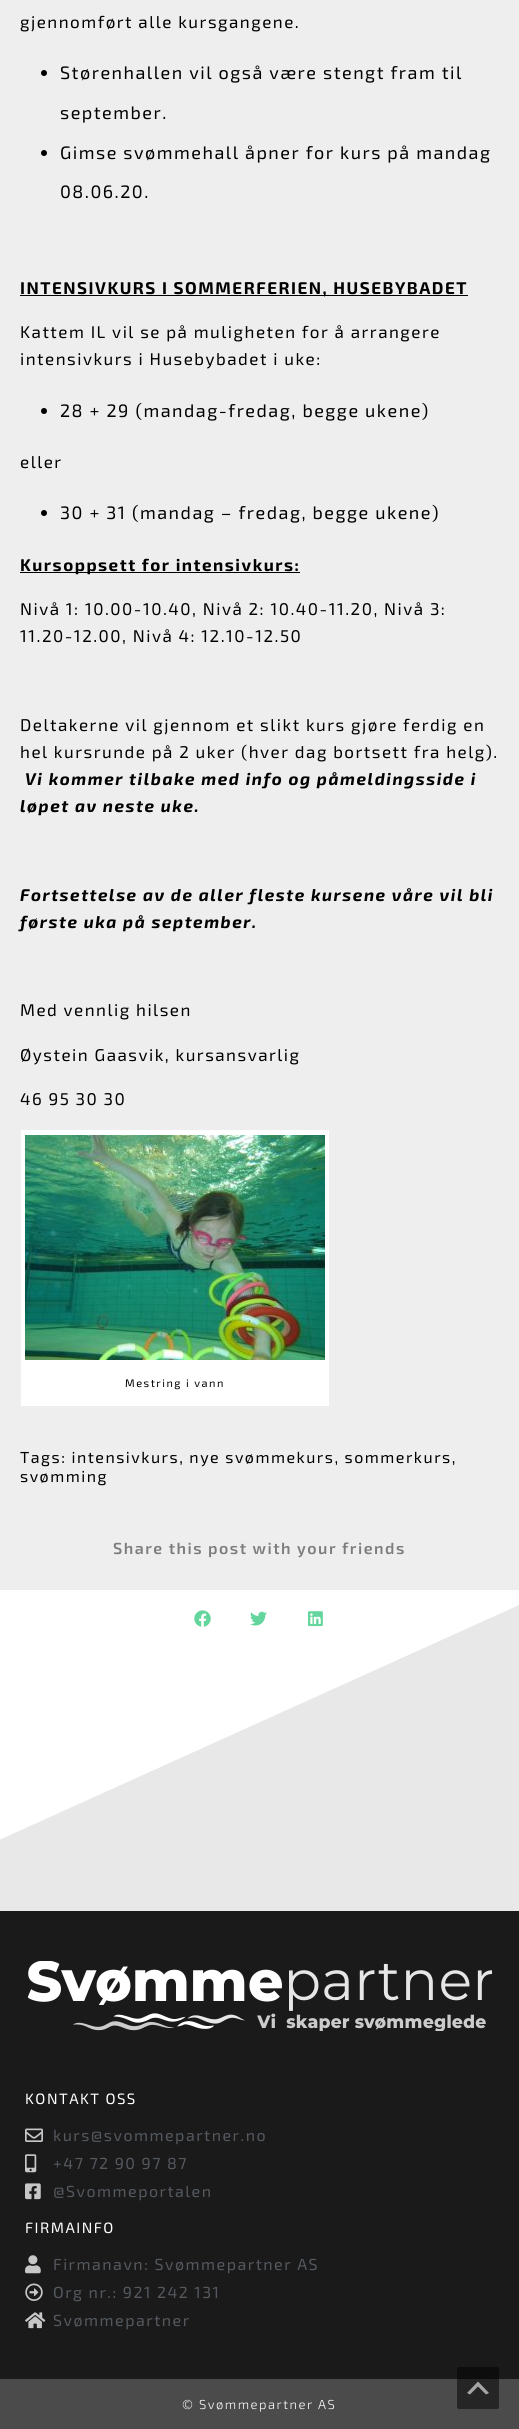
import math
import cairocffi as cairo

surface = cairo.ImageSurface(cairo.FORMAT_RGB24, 519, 2429)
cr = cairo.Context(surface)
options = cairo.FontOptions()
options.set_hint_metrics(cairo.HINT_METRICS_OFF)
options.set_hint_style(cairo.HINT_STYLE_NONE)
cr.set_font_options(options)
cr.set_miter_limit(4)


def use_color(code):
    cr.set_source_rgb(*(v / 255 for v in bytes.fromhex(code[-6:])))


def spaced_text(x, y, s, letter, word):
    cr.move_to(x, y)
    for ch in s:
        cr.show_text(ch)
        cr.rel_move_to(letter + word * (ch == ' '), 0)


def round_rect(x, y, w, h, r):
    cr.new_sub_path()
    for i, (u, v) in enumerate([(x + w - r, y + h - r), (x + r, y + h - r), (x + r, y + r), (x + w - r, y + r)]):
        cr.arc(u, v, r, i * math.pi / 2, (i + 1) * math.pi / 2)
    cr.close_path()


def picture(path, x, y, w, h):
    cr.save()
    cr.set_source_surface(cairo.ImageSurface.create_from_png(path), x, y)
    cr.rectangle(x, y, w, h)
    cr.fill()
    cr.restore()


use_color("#eeeeee")
cr.paint()
cr.select_font_face("Exo 2")
cr.set_font_size(17)
use_color("#000000")
spaced_text(20, 28, "gjennomført alle kursgangene.", 1.5, 0)
cr.new_path()
cr.arc(44, 73, 3, 0, 2 * math.pi)
cr.fill()
cr.set_font_size(18)
spaced_text(60, 79, "Størenhallen vil også være stengt fram til", 1.5, 0)
spaced_text(60, 119, "september.", 1.5, 0)
cr.new_path()
cr.arc(44, 153, 3, 0, 2 * math.pi)
cr.fill()
spaced_text(60, 159, "Gimse svømmehall åpner for kurs på mandag", 1.5, 0)
spaced_text(60, 198, "08.06.20.", 1.5, 0)
cr.rectangle(20, 295, 448, 1)
cr.fill()
cr.select_font_face("Exo 2", cairo.FONT_SLANT_NORMAL, cairo.FONT_WEIGHT_BOLD)
cr.set_font_size(17)
spaced_text(20, 294, "INTENSIVKURS I SOMMERFERIEN, HUSEBYBADET", 1.5, 0)
cr.select_font_face("Exo 2")
spaced_text(20, 338, "Kattem IL vil se på muligheten for å arrangere", 1.5, 0)
spaced_text(20, 365, "intensivkurs i Husebybadet i uke:", 1.5, 0)
cr.new_path()
cr.arc(44, 411, 3, 0, 2 * math.pi)
cr.fill()
cr.set_font_size(18)
spaced_text(60, 417, "28 + 29 (mandag-fredag, begge ukene)", 1.5, 0)
cr.set_font_size(17)
spaced_text(20, 468, "eller", 1.5, 0)
cr.new_path()
cr.arc(44, 513, 3, 0, 2 * math.pi)
cr.fill()
cr.set_font_size(18)
spaced_text(60, 519, "30 + 31 (mandag – fredag, begge ukene)", 1.5, 0)
cr.rectangle(20, 572, 280, 1)
cr.fill()
cr.select_font_face("Exo 2", cairo.FONT_SLANT_NORMAL, cairo.FONT_WEIGHT_BOLD)
cr.set_font_size(17)
spaced_text(20, 571, "Kursoppsett for intensivkurs:", 1.5, 0)
cr.select_font_face("Exo 2")
spaced_text(20, 615, "Nivå 1: 10.00-10.40, Nivå 2: 10.40-11.20, Nivå 3:", 1.5, 0)
spaced_text(20, 642, "11.20-12.00, Nivå 4: 12.10-12.50", 1.5, 0)
spaced_text(20, 731, "Deltakerne vil gjennom et slikt kurs gjøre ferdig en", 1.5, 0)
spaced_text(20, 758, "hel kursrunde på 2 uker (hver dag bortsett fra helg).", 1.5, 0)
cr.select_font_face("Exo 2", cairo.FONT_SLANT_ITALIC, cairo.FONT_WEIGHT_BOLD)
spaced_text(25, 785, "Vi kommer tilbake med info og påmeldingsside i", 1.5, 0)
spaced_text(20, 812, "løpet av neste uke.", 1.5, 0)
spaced_text(20, 901, "Fortsettelse av de aller fleste kursene våre vil bli", 1.5, 0)
spaced_text(20, 928, "første uka på september.", 1.5, 0)
cr.select_font_face("Exo 2")
spaced_text(20, 1016, "Med vennlig hilsen", 1.5, 0)
spaced_text(20, 1061, "Øystein Gaasvik, kursansvarlig", 1.5, 0)
spaced_text(20, 1105, "46 95 30 30", 1.5, 0)
use_color("#ffffff")
cr.rectangle(21, 1130, 308, 276)
cr.fill()
picture("img1.png", 25, 1135, 300, 225)
cr.set_font_size(11)
use_color("#000000")
spaced_text(125, 1387, "Mestring i vann", 1.5, 0)
cr.set_font_size(16)
spaced_text(20, 1463, "Tags: intensivkurs, nye svømmekurs, sommerkurs,", 1.5, 0)
spaced_text(20, 1482, "svømming", 1.5, 0)
cr.select_font_face("Exo 2 SemiBold")
use_color("#7c7c7c")
spaced_text(113, 1554, "Share this post with your friends", 1.5, 0)
use_color("#e8e8e8")
cr.rectangle(0, 1605, 519, 306)
cr.fill()
use_color("#ffffff")
cr.new_path()
cr.move_to(519, 1605)
cr.line_to(519, 1590)
cr.line_to(-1, 1590)
cr.line_to(-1, 1840)
cr.close_path()
cr.fill()
picture("img2.png", 194, 1610, 17, 17)
picture("img3.png", 250, 1611, 17, 15)
picture("img4.png", 308, 1611, 15, 16)
use_color("#1a1a1a")
cr.rectangle(0, 1911, 519, 468)
cr.fill()
picture("img5.png", 28, 1961, 464, 70)
cr.select_font_face("Exo 2")
cr.set_font_size(15)
use_color("#ffffff")
spaced_text(25, 2104, "KONTAKT OSS", 1.5, 0)
picture("img6.png", 25, 2128, 18, 14)
cr.set_font_size(16)
use_color("#54595f")
spaced_text(53, 2141, "kurs@svommepartner.no", 1.5, 0)
picture("img7.png", 25, 2154, 12, 19)
spaced_text(53, 2169, "+47 72 90 97 87", 1.5, 0)
picture("img8.png", 25, 2183, 16, 17)
spaced_text(53, 2197, "@Svommeportalen", 1.5, 0)
cr.set_font_size(15)
use_color("#ffffff")
spaced_text(25, 2233, "FIRMAINFO", 1.5, 0)
picture("img9.png", 25, 2255, 16, 19)
cr.set_font_size(16)
use_color("#54595f")
spaced_text(53, 2270, "Firmanavn: Svømmepartner AS", 1.5, 0)
picture("img10.png", 25, 2283, 18, 18)
spaced_text(53, 2298, "Org nr.: 921 242 131", 1.5, 0)
picture("img11.png", 25, 2312, 21, 17)
spaced_text(53, 2326, "Svømmepartner", 1.5, 0)
use_color("#4b4b4b")
cr.rectangle(0, 2379, 519, 50)
cr.fill()
cr.select_font_face("Exo 2 Light")
cr.set_font_size(13)
use_color("#ffffff")
spaced_text(182, 2409, "© Svømmepartner AS", 1.5, 0)
cr.set_source_rgba(0, 0, 0, 0.5)
round_rect(457, 2367, 42, 42, 2)
cr.fill()
use_color("#a5a5a5")
cr.new_path()
cr.move_to(486, 2394.5)
cr.line_to(478, 2386.5)
cr.line_to(470, 2394.5)
cr.line_to(467, 2393)
cr.line_to(478, 2381.5)
cr.line_to(489, 2393)
cr.close_path()
cr.fill()
surface.write_to_png("result.png")
